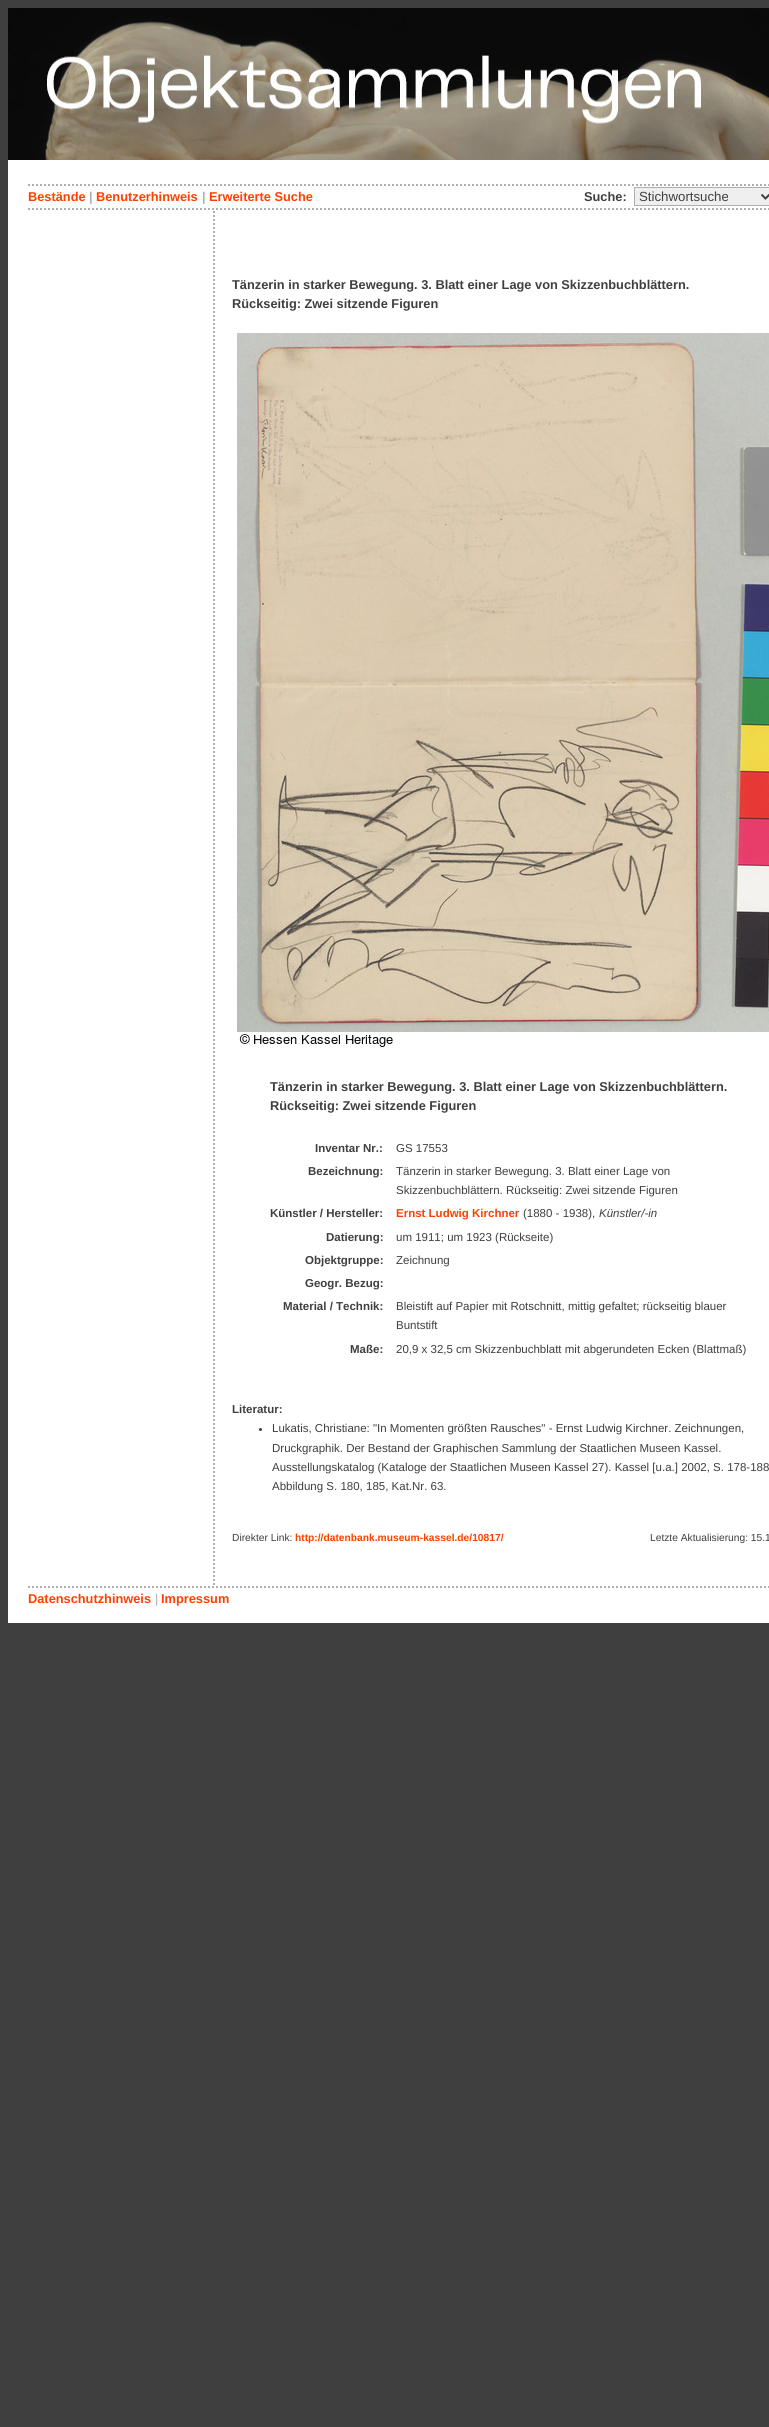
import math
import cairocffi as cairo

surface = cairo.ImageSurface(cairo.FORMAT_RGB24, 769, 2427)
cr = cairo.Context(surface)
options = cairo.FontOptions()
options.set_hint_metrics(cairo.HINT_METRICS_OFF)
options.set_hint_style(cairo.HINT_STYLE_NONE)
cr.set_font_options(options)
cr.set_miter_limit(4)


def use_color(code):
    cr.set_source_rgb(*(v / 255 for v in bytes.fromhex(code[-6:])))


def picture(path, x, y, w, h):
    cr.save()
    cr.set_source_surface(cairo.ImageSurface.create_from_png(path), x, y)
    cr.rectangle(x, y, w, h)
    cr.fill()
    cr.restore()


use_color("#3f3f3f")
cr.paint()
use_color("#ffffff")
cr.rectangle(8, 160, 761, 1463)
cr.fill()
picture("img1.png", 8, 8, 761, 152)
cr.new_path()
cr.move_to(28, 185)
cr.line_to(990, 185)
use_color("#afafaf")
cr.set_dash([2, 2])
cr.stroke()
cr.select_font_face("Liberation Sans", cairo.FONT_SLANT_NORMAL, cairo.FONT_WEIGHT_BOLD)
cr.set_font_size(12.8)
use_color("#ff4000")
cr.move_to(28, 201)
cr.show_text("Bestände")
use_color("#afafaf")
cr.move_to(89, 201)
cr.show_text("|")
use_color("#ff4000")
cr.move_to(96, 201)
cr.show_text("Benutzerhinweis")
use_color("#afafaf")
cr.move_to(202, 201)
cr.show_text("|")
use_color("#ff4000")
cr.move_to(209, 201)
cr.show_text("Erweiterte Suche")
use_color("#3f3f3f")
cr.move_to(584, 201)
cr.show_text("Suche:")
use_color("#efefef")
cr.rectangle(634.5, 187.5, 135, 18)
cr.fill_preserve()
use_color("#afafaf")
cr.set_line_width(1)
cr.set_dash([])
cr.stroke()
cr.new_path()
cr.move_to(761.5, 194.5)
cr.line_to(765.5, 198.5)
cr.line_to(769.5, 194.5)
use_color("#3f3f3f")
cr.set_line_width(2)
cr.stroke()
cr.select_font_face("Liberation Sans")
cr.set_font_size(13.25)
cr.move_to(639, 201)
cr.show_text("Stichwortsuche")
cr.new_path()
cr.move_to(28, 209)
cr.line_to(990, 209)
use_color("#afafaf")
cr.set_dash([2, 2])
cr.stroke()
cr.new_path()
cr.move_to(214, 211)
cr.line_to(214, 1586)
cr.stroke()
cr.select_font_face("Liberation Sans", cairo.FONT_SLANT_NORMAL, cairo.FONT_WEIGHT_BOLD)
cr.set_font_size(12.8)
use_color("#3f3f3f")
cr.move_to(232, 289)
cr.show_text("Tänzerin in starker Bewegung. 3. Blatt einer Lage von Skizzenbuchblättern.")
cr.move_to(232, 308)
cr.show_text("Rückseitig: Zwei sitzende Figuren")
picture("img2.png", 237, 333, 532, 716)
cr.move_to(270, 1091)
cr.show_text("Tänzerin in starker Bewegung. 3. Blatt einer Lage von Skizzenbuchblättern.")
cr.move_to(270, 1110)
cr.show_text("Rückseitig: Zwei sitzende Figuren")
cr.set_font_size(11.5)
cr.move_to(315, 1152)
cr.show_text("Inventar Nr.:")
cr.select_font_face("Liberation Sans")
cr.move_to(396, 1152)
cr.show_text("GS 17553")
cr.select_font_face("Liberation Sans", cairo.FONT_SLANT_NORMAL, cairo.FONT_WEIGHT_BOLD)
cr.move_to(308, 1175)
cr.show_text("Bezeichnung:")
cr.select_font_face("Liberation Sans")
cr.move_to(396, 1175)
cr.show_text("Tänzerin in starker Bewegung. 3. Blatt einer Lage von")
cr.move_to(396, 1194)
cr.show_text("Skizzenbuchblättern. Rückseitig: Zwei sitzende Figuren")
cr.select_font_face("Liberation Sans", cairo.FONT_SLANT_NORMAL, cairo.FONT_WEIGHT_BOLD)
cr.move_to(270, 1217)
cr.show_text("Künstler / Hersteller:")
use_color("#ff4000")
cr.move_to(396, 1217)
cr.show_text("Ernst Ludwig Kirchner")
cr.select_font_face("Liberation Sans")
use_color("#3f3f3f")
cr.move_to(523, 1217)
cr.show_text("(1880 - 1938),")
cr.select_font_face("Liberation Sans", cairo.FONT_SLANT_ITALIC)
cr.move_to(599, 1217)
cr.show_text("Künstler/-in")
cr.select_font_face("Liberation Sans", cairo.FONT_SLANT_NORMAL, cairo.FONT_WEIGHT_BOLD)
cr.move_to(326, 1241)
cr.show_text("Datierung:")
cr.select_font_face("Liberation Sans")
cr.move_to(396, 1241)
cr.show_text("um 1911; um 1923 (Rückseite)")
cr.select_font_face("Liberation Sans", cairo.FONT_SLANT_NORMAL, cairo.FONT_WEIGHT_BOLD)
cr.move_to(305, 1264)
cr.show_text("Objektgruppe:")
cr.select_font_face("Liberation Sans")
cr.move_to(396, 1264)
cr.show_text("Zeichnung")
cr.select_font_face("Liberation Sans", cairo.FONT_SLANT_NORMAL, cairo.FONT_WEIGHT_BOLD)
cr.move_to(305, 1287)
cr.show_text("Geogr. Bezug:")
cr.move_to(283, 1310)
cr.show_text("Material / Technik:")
cr.select_font_face("Liberation Sans")
cr.move_to(396, 1310)
cr.show_text("Bleistift auf Papier mit Rotschnitt, mittig gefaltet; rückseitig blauer")
cr.move_to(396, 1329)
cr.show_text("Buntstift")
cr.select_font_face("Liberation Sans", cairo.FONT_SLANT_NORMAL, cairo.FONT_WEIGHT_BOLD)
cr.move_to(350, 1353)
cr.show_text("Maße:")
cr.select_font_face("Liberation Sans")
cr.move_to(396, 1353)
cr.show_text("20,9 x 32,5 cm Skizzenbuchblatt mit abgerundeten Ecken (Blattmaß)")
cr.select_font_face("Liberation Sans", cairo.FONT_SLANT_NORMAL, cairo.FONT_WEIGHT_BOLD)
cr.move_to(232, 1413)
cr.show_text("Literatur:")
cr.new_path()
cr.arc(260.5, 1429.5, 1.5, 0, 2 * math.pi)
cr.fill()
cr.select_font_face("Liberation Sans")
cr.move_to(272, 1432)
cr.show_text("Lukatis, Christiane: \"In Momenten größten Rausches\" - Ernst Ludwig Kirchner. Zeichnungen,")
cr.move_to(272, 1452)
cr.show_text("Druckgraphik. Der Bestand der Graphischen Sammlung der Staatlichen Museen Kassel.")
cr.move_to(272, 1471)
cr.show_text("Ausstellungskatalog (Kataloge der Staatlichen Museen Kassel 27). Kassel [u.a.] 2002, S. 178-188")
cr.move_to(272, 1490)
cr.show_text("Abbildung S. 180, 185, Kat.Nr. 63.")
cr.set_font_size(10.25)
cr.move_to(232, 1541)
cr.show_text("Direkter Link:")
cr.select_font_face("Liberation Sans", cairo.FONT_SLANT_NORMAL, cairo.FONT_WEIGHT_BOLD)
use_color("#ff4000")
cr.move_to(295, 1541)
cr.show_text("http://datenbank.museum-kassel.de/10817/")
cr.select_font_face("Liberation Sans")
use_color("#3f3f3f")
cr.move_to(650, 1541)
cr.show_text("Letzte Aktualisierung: 15.1")
cr.new_path()
cr.move_to(28, 1587)
cr.line_to(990, 1587)
use_color("#afafaf")
cr.stroke()
cr.select_font_face("Liberation Sans", cairo.FONT_SLANT_NORMAL, cairo.FONT_WEIGHT_BOLD)
cr.set_font_size(12.8)
use_color("#ff4000")
cr.move_to(28, 1603)
cr.show_text("Datenschutzhinweis")
cr.select_font_face("Liberation Sans")
use_color("#afafaf")
cr.move_to(155, 1603)
cr.show_text("|")
cr.select_font_face("Liberation Sans", cairo.FONT_SLANT_NORMAL, cairo.FONT_WEIGHT_BOLD)
use_color("#ff4000")
cr.move_to(161, 1603)
cr.show_text("Impressum")
surface.write_to_png("result.png")
